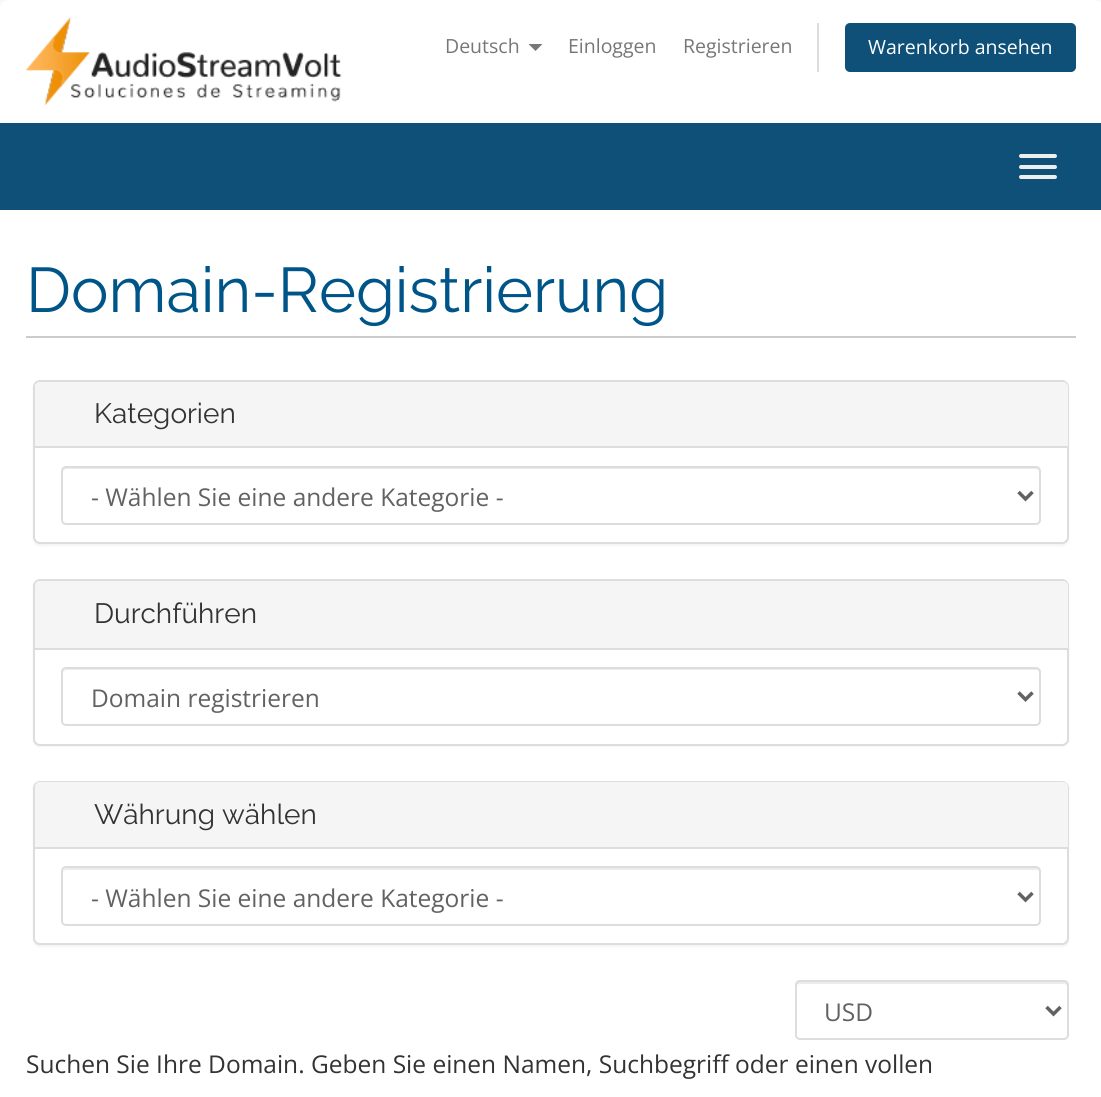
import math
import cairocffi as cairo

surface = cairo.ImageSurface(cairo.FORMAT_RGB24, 1101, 1097)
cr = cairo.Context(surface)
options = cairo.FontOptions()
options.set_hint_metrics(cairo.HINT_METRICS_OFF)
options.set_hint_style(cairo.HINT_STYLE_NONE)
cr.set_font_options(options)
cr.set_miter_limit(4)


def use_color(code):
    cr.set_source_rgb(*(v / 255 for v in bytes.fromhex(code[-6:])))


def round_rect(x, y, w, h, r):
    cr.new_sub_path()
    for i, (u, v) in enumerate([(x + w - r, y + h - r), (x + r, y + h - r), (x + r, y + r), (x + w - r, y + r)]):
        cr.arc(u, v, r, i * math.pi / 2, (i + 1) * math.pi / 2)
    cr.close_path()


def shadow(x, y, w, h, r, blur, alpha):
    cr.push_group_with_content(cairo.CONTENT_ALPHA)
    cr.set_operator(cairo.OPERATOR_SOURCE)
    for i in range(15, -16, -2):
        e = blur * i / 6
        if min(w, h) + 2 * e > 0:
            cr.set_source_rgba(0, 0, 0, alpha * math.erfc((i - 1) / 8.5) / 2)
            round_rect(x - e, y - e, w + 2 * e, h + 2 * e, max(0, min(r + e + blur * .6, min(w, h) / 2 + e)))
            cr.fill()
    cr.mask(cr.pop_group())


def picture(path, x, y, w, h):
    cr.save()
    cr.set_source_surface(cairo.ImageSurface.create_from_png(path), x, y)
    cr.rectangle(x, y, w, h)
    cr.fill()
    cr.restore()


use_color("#f8f8f8")
cr.paint()
use_color("#ffffff")
cr.new_path()
cr.move_to(9, 0)
cr.line_to(1094, 0)
cr.curve_to(1099, 0, 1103, 4, 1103, 9)
cr.line_to(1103, 123)
cr.line_to(0, 123)
cr.line_to(0, 9)
cr.curve_to(0, 4, 4, 0, 9, 0)
cr.close_path()
cr.fill()
picture("img1.png", 26, 17, 316, 88)
cr.select_font_face("Open Sans")
cr.set_font_size(19.5)
use_color("#777777")
cr.move_to(445, 53)
cr.show_text("Deutsch")
cr.new_path()
cr.move_to(528.5, 44)
cr.line_to(542.5, 44)
cr.line_to(535.5, 51)
cr.close_path()
cr.fill()
cr.move_to(568, 53)
cr.show_text("Einloggen")
cr.move_to(683, 53)
cr.show_text("Registrieren")
use_color("#dddddd")
cr.rectangle(817, 23, 2, 49)
cr.fill()
use_color("#0e5077")
round_rect(845, 23, 231, 49, 5)
cr.fill()
use_color("#ffffff")
cr.move_to(868, 54)
cr.show_text("Warenkorb ansehen")
use_color("#0e5077")
cr.rectangle(0, 123, 1101, 87)
cr.fill()
use_color("#eeeeee")
round_rect(1019, 154, 38, 4, 2)
cr.fill()
round_rect(1019, 165, 38, 4, 2)
cr.fill()
round_rect(1019, 175, 38, 4, 2)
cr.fill()
use_color("#ffffff")
cr.rectangle(0, 210, 1101, 887)
cr.fill()
use_color("#cccccc")
cr.rectangle(26, 336, 1050, 2)
cr.fill()
cr.select_font_face("Raleway")
cr.set_font_size(63)
use_color("#005588")
cr.move_to(26, 312)
cr.show_text("Domain-Registrierung")
use_color("#000000")
shadow(33, 382, 1036, 164, 7, 1, 0.05)
use_color("#ffffff")
round_rect(34, 381, 1034, 162, 6)
cr.fill_preserve()
use_color("#dddddd")
cr.stroke()
use_color("#f5f5f5")
cr.new_path()
cr.move_to(40, 382)
cr.line_to(1063, 382)
cr.curve_to(1066, 382, 1068, 384, 1068, 387)
cr.line_to(1068, 448)
cr.line_to(35, 448)
cr.line_to(35, 387)
cr.curve_to(35, 384, 37, 382, 40, 382)
cr.close_path()
cr.fill()
use_color("#dddddd")
cr.rectangle(35, 446, 1033, 2)
cr.fill()
cr.set_font_size(28)
use_color("#333333")
cr.move_to(94, 423)
cr.show_text("Kategorien")
use_color("#ececec")
cr.new_path()
cr.move_to(66, 469)
cr.line_to(1036, 469)
cr.curve_to(1038, 469, 1040, 471, 1040, 472)
cr.curve_to(1040, 469, 1039, 467, 1036, 467)
cr.line_to(67, 467)
cr.curve_to(64, 467, 63, 469, 63, 472)
cr.curve_to(63, 471, 65, 469, 66, 469)
cr.close_path()
cr.fill()
round_rect(62, 467, 978, 57, 4)
use_color("#dddddd")
cr.stroke()
cr.new_path()
cr.move_to(1018.5, 492)
cr.line_to(1025.5, 499)
cr.line_to(1032.5, 492)
use_color("#626262")
cr.set_line_width(3.5)
cr.stroke()
cr.select_font_face("Open Sans")
cr.set_font_size(24.5)
cr.move_to(91, 506)
cr.show_text("- Wählen Sie eine andere Kategorie -")
use_color("#000000")
shadow(33, 581, 1036, 166, 7, 1, 0.05)
use_color("#ffffff")
round_rect(34, 580, 1034, 165, 6)
cr.fill_preserve()
use_color("#dddddd")
cr.set_line_width(2)
cr.stroke()
use_color("#f5f5f5")
cr.new_path()
cr.move_to(40, 581)
cr.line_to(1063, 581)
cr.curve_to(1066, 581, 1068, 583, 1068, 586)
cr.line_to(1068, 649)
cr.line_to(35, 649)
cr.line_to(35, 586)
cr.curve_to(35, 583, 37, 581, 40, 581)
cr.close_path()
cr.fill()
use_color("#dddddd")
cr.rectangle(35, 648, 1033, 2)
cr.fill()
cr.select_font_face("Raleway")
cr.set_font_size(28)
use_color("#333333")
cr.move_to(94, 623)
cr.show_text("Durchführen")
use_color("#ececec")
cr.new_path()
cr.move_to(66, 670)
cr.line_to(1036, 670)
cr.curve_to(1038, 670, 1040, 672, 1040, 674)
cr.curve_to(1040, 671, 1039, 669, 1036, 669)
cr.line_to(67, 669)
cr.curve_to(64, 669, 63, 671, 63, 674)
cr.curve_to(63, 672, 65, 670, 66, 670)
cr.close_path()
cr.fill()
round_rect(62, 668, 978, 57, 4)
use_color("#dddddd")
cr.stroke()
cr.new_path()
cr.move_to(1018.5, 692.5)
cr.line_to(1025.5, 699.5)
cr.line_to(1032.5, 692.5)
use_color("#626262")
cr.set_line_width(3.5)
cr.stroke()
cr.select_font_face("Open Sans")
cr.set_font_size(24.5)
cr.move_to(91, 707)
cr.show_text("Domain registrieren")
use_color("#000000")
shadow(33, 782, 1036, 165, 7, 1, 0.05)
use_color("#ffffff")
round_rect(34, 782, 1034, 162, 6)
cr.fill_preserve()
use_color("#dddddd")
cr.set_line_width(2)
cr.stroke()
use_color("#f5f5f5")
cr.new_path()
cr.move_to(40, 782)
cr.line_to(1063, 782)
cr.curve_to(1066, 782, 1068, 784, 1068, 787)
cr.line_to(1068, 849)
cr.line_to(35, 849)
cr.line_to(35, 787)
cr.curve_to(35, 784, 37, 782, 40, 782)
cr.close_path()
cr.fill()
use_color("#dddddd")
cr.rectangle(35, 847, 1033, 2)
cr.fill()
cr.select_font_face("Raleway")
cr.set_font_size(28)
use_color("#333333")
cr.move_to(94, 824)
cr.show_text("Währung wählen")
use_color("#ececec")
cr.new_path()
cr.move_to(66, 870)
cr.line_to(1036, 870)
cr.curve_to(1038, 870, 1040, 871, 1040, 873)
cr.curve_to(1040, 870, 1039, 868, 1036, 868)
cr.line_to(67, 868)
cr.curve_to(64, 868, 63, 870, 63, 873)
cr.curve_to(63, 871, 65, 870, 66, 870)
cr.close_path()
cr.fill()
round_rect(62, 867, 978, 58, 4)
use_color("#dddddd")
cr.stroke()
cr.new_path()
cr.move_to(1018.5, 893)
cr.line_to(1025.5, 900)
cr.line_to(1032.5, 893)
use_color("#626262")
cr.set_line_width(3.5)
cr.stroke()
cr.select_font_face("Open Sans")
cr.set_font_size(24.5)
cr.move_to(91, 907)
cr.show_text("- Wählen Sie eine andere Kategorie -")
use_color("#ececec")
cr.new_path()
cr.move_to(800, 984)
cr.line_to(1065, 984)
cr.line_to(1068, 986)
cr.line_to(1068, 987)
cr.curve_to(1068, 984, 1067, 982, 1064, 982)
cr.line_to(800, 982)
cr.curve_to(797, 982, 796, 984, 796, 987)
cr.curve_to(796, 985, 798, 984, 800, 984)
cr.close_path()
cr.fill()
round_rect(796, 981, 272, 58, 4)
use_color("#dddddd")
cr.set_line_width(2)
cr.stroke()
cr.new_path()
cr.move_to(1046.5, 1007)
cr.line_to(1053.5, 1014)
cr.line_to(1060.5, 1007)
use_color("#626262")
cr.set_line_width(3.5)
cr.stroke()
cr.move_to(824, 1021)
cr.show_text("USD")
use_color("#333333")
cr.move_to(26, 1073)
cr.show_text("Suchen Sie Ihre Domain. Geben Sie einen Namen, Suchbegriff oder einen vollen")
surface.write_to_png("result.png")
